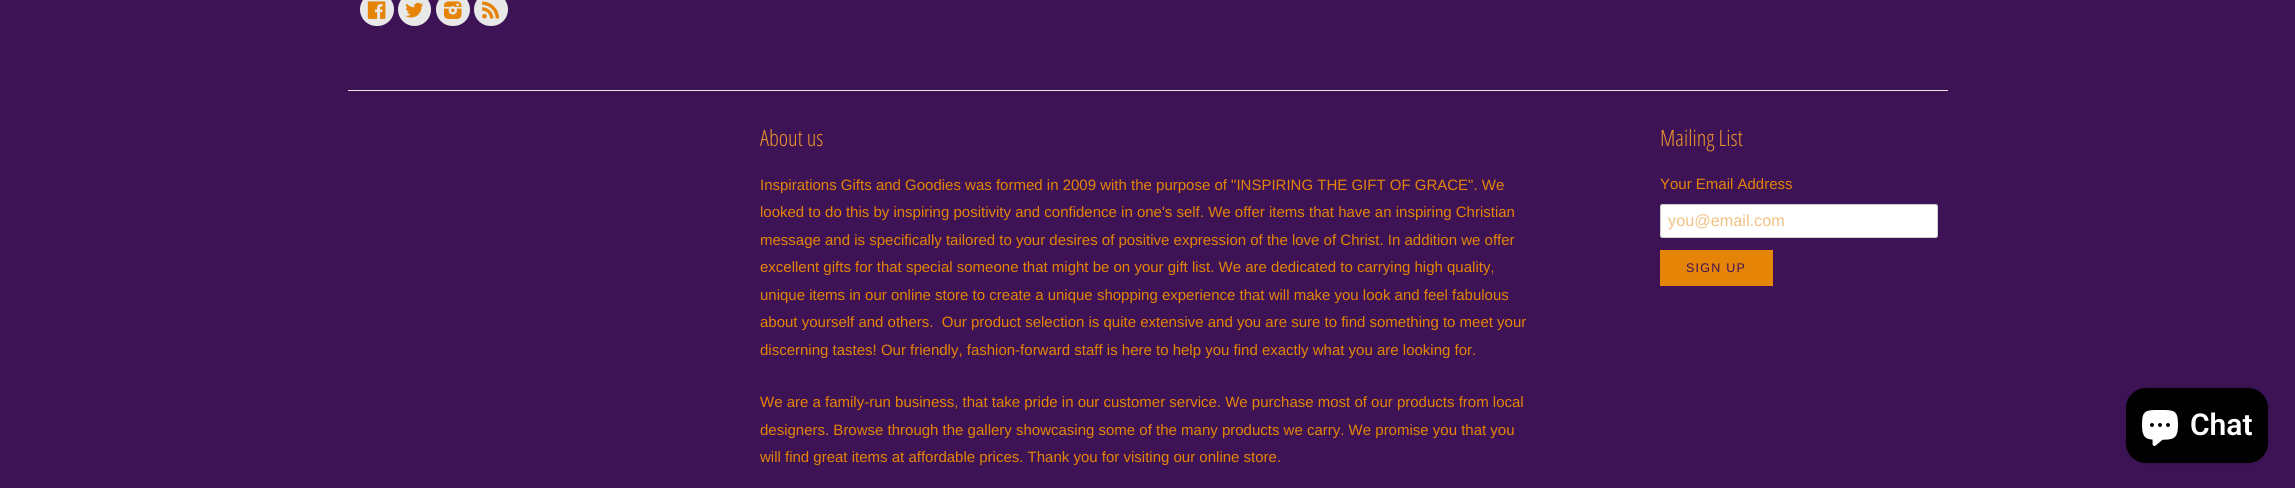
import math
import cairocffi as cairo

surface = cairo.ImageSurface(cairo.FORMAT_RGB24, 2295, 488)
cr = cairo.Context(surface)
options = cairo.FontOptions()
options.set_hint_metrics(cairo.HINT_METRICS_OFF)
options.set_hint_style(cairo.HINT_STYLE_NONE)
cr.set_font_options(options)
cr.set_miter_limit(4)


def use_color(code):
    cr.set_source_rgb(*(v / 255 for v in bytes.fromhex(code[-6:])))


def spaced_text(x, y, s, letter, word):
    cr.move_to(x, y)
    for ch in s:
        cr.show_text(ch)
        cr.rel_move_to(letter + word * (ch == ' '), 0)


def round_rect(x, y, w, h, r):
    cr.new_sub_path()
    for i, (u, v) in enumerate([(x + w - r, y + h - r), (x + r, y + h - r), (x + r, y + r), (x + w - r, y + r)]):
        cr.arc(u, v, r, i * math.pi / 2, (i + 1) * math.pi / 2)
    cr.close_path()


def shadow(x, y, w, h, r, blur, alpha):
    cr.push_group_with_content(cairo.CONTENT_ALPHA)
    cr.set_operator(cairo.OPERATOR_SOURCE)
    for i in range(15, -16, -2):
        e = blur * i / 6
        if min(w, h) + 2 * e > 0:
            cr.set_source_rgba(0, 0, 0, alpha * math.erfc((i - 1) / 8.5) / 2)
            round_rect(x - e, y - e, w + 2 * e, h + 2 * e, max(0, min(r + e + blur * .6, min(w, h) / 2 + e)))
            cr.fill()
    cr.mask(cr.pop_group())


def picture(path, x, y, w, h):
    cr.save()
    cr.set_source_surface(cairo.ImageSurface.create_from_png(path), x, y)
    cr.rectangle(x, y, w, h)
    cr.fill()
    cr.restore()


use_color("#3d1356")
cr.paint()
use_color("#e8e8e8")
round_rect(360, -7, 34, 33, 16.5)
cr.fill()
picture("img1.png", 367, 1, 19, 18)
cr.arc(414.5, 9.5, 16.5, 0, 2 * math.pi)
cr.fill()
picture("img2.png", 405, 2, 19, 16)
round_rect(436, -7, 34, 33, 16.5)
cr.fill()
picture("img3.png", 443, 1, 19, 18)
round_rect(474, -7, 34, 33, 16.5)
cr.fill()
picture("img4.png", 482, 1, 18, 18)
cr.rectangle(348, 90, 1600, 1)
cr.fill()
cr.select_font_face("Open Sans Condensed Light")
cr.set_font_size(22.5)
use_color("#f09827")
cr.move_to(760, 146)
cr.show_text("About us")
cr.select_font_face("Liberation Sans")
cr.set_font_size(15)
use_color("#e58406")
cr.move_to(760, 190)
cr.show_text("Inspirations Gifts and Goodies was formed in 2009 with the purpose of \"INSPIRING THE GIFT OF GRACE\". We")
cr.move_to(760, 217)
cr.show_text("looked to do this by inspiring positivity and confidence in one's self. We offer items that have an inspiring Christian")
cr.move_to(760, 245)
cr.show_text("message and is specifically tailored to your desires of positive expression of the love of Christ. In addition we offer")
cr.move_to(760, 272)
cr.show_text("excellent gifts for that special someone that might be on your gift list. We are dedicated to carrying high quality,")
cr.move_to(760, 300)
cr.show_text("unique items in our online store to create a unique shopping experience that will make you look and feel fabulous")
cr.move_to(760, 327)
cr.show_text("about yourself and others.  Our product selection is quite extensive and you are sure to find something to meet your")
cr.move_to(760, 355)
cr.show_text("discerning tastes! Our friendly, fashion-forward staff is here to help you find exactly what you are looking for.")
cr.move_to(760, 407)
cr.show_text("We are a family-run business, that take pride in our customer service. We purchase most of our products from local")
cr.move_to(760, 435)
cr.show_text("designers. Browse through the gallery showcasing some of the many products we carry. We promise you that you")
cr.move_to(760, 462)
cr.show_text("will find great items at affordable prices. Thank you for visiting our online store.")
cr.select_font_face("Open Sans Condensed Light")
cr.set_font_size(22.5)
use_color("#f09827")
cr.move_to(1660, 146)
cr.show_text("Mailing List")
cr.select_font_face("Liberation Sans")
cr.set_font_size(15)
use_color("#e58406")
cr.move_to(1660, 189)
cr.show_text("Your Email Address")
use_color("#ffffff")
round_rect(1660.5, 204.5, 277, 33, 2)
cr.fill_preserve()
use_color("#cccccc")
cr.set_line_width(1)
cr.stroke()
cr.set_font_size(16.25)
use_color("#f2c283")
cr.move_to(1668, 226)
cr.show_text("you@email.com")
use_color("#e58406")
cr.rectangle(1660, 250, 113, 36)
cr.fill()
cr.set_font_size(12.5)
use_color("#3d1356")
spaced_text(1686, 272, "SIGN UP", 1.25, 0)
use_color("#000000")
shadow(2126, 388, 142, 75, 20, 3, 0.15)
use_color("#000000")
round_rect(2126, 388, 142, 75, 20)
cr.fill()
picture("img5.png", 2142, 410, 36, 36)
cr.select_font_face("Roboto SemiBold")
cr.set_font_size(30)
use_color("#ffffff")
cr.move_to(2190, 435)
cr.show_text("Chat")
surface.write_to_png("result.png")
